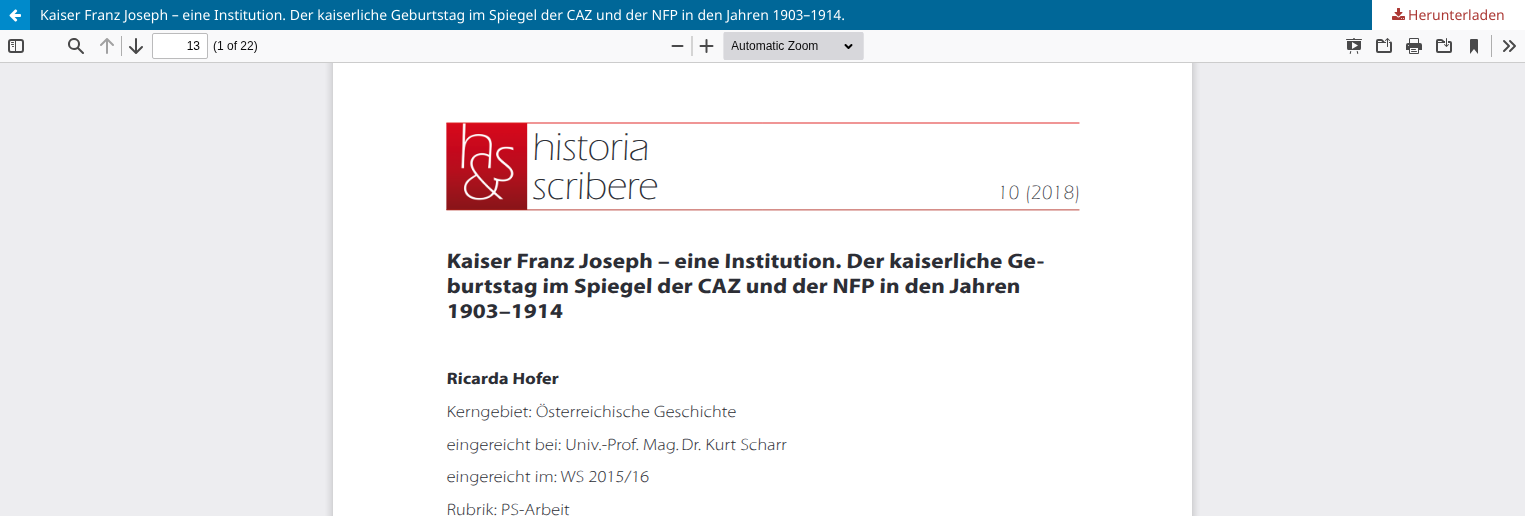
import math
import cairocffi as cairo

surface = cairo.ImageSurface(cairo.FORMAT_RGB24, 1525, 516)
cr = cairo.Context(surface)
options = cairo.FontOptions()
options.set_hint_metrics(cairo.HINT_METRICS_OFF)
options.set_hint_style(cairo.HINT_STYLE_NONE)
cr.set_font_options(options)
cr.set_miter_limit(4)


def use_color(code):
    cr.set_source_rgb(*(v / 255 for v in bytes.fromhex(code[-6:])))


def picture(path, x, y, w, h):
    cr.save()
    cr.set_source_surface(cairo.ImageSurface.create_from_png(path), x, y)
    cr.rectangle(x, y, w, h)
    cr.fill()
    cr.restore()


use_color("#ffffff")
cr.paint()
use_color("#006798")
cr.rectangle(30, 0, 1342, 30)
cr.fill()
use_color("#008acb")
cr.rectangle(0, 0, 30, 30)
cr.fill()
picture("img1.png", 9, 9, 12, 13)
cr.select_font_face("Noto Sans")
cr.set_font_size(14)
use_color("#ffffff")
cr.move_to(40, 20)
cr.show_text("Kaiser Franz Joseph – eine Institution. Der kaiserliche Geburtstag im Spiegel der CAZ und der NFP in den Jahren 1903–1914.")
picture("img2.png", 1392, 8, 13, 12)
use_color("#ab3834")
cr.move_to(1408, 20)
cr.show_text("Herunterladen")
picture("img3.png", 0, 30, 1525, 486)
surface.write_to_png("result.png")
